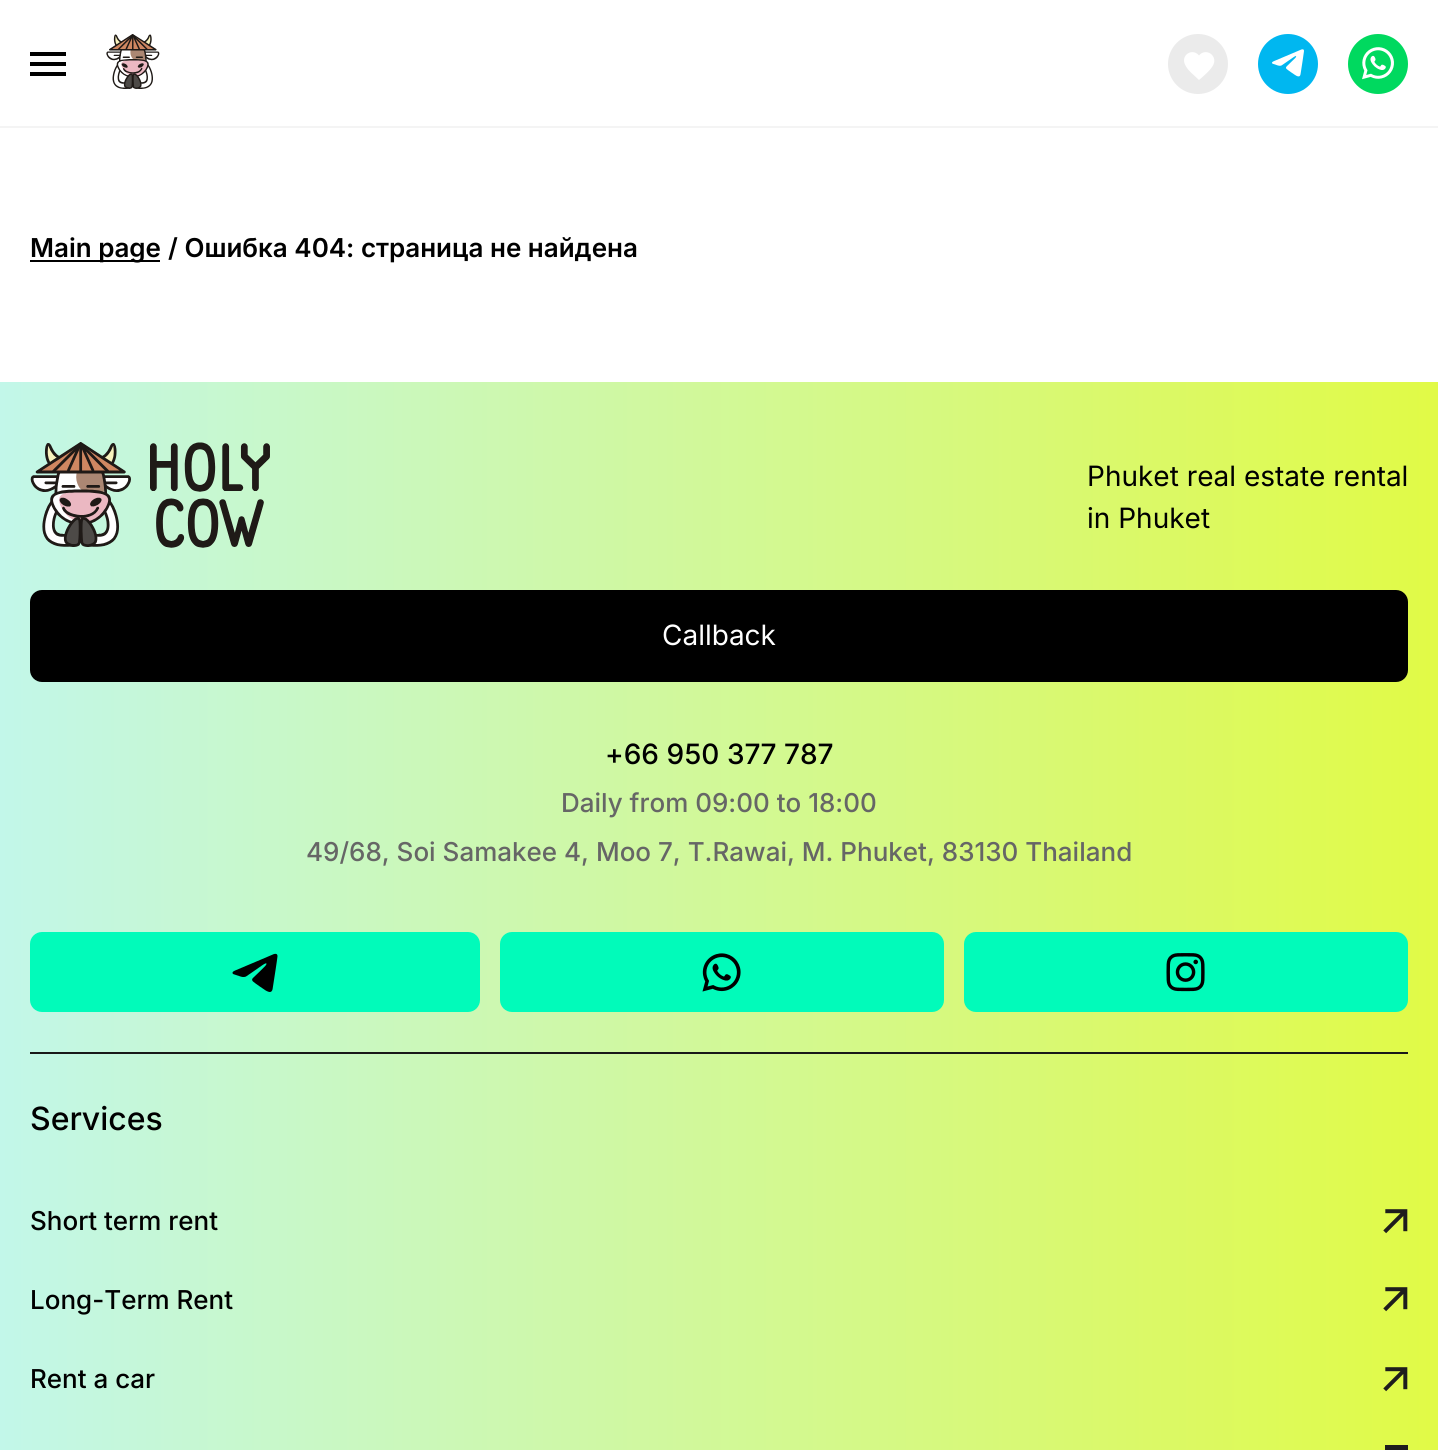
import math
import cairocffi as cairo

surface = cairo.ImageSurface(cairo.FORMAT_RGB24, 1438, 1450)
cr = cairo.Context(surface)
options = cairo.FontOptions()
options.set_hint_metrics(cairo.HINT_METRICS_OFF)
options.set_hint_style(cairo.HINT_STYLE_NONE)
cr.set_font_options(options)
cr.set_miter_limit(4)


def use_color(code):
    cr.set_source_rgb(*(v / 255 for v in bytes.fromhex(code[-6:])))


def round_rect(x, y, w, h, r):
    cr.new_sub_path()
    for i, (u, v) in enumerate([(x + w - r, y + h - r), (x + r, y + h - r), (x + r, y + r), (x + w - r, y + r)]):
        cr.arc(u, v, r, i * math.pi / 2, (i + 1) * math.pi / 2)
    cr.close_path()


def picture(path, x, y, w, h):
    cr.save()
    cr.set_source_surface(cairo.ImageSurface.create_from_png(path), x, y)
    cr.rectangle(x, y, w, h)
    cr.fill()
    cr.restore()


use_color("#ffffff")
cr.paint()
use_color("#f4f4f4")
cr.rectangle(0, 126, 1438, 2)
cr.fill()
use_color("#000000")
cr.rectangle(30, 52, 36, 4)
cr.fill()
cr.rectangle(30, 62, 36, 4)
cr.fill()
cr.rectangle(30, 72, 36, 4)
cr.fill()
picture("img1.png", 106, 34, 54, 55)
use_color("#ebebeb")
cr.arc(1198, 64, 30, 0, 2 * math.pi)
cr.fill()
use_color("#ffffff")
cr.new_path()
cr.move_to(1199, 80)
cr.curve_to(1194.5, 75.5, 1187.5, 70.5, 1185, 64.5)
cr.curve_to(1180.5, 55, 1192.5, 47.5, 1199, 55.5)
cr.curve_to(1205.5, 47.5, 1217.5, 55, 1213.5, 64.5)
cr.curve_to(1210.5, 70.5, 1204, 75.5, 1199, 80)
cr.close_path()
cr.fill()
use_color("#00b7f0")
cr.arc(1288, 64, 30, 0, 2 * math.pi)
cr.fill()
picture("img2.png", 1272, 49, 32, 28)
use_color("#00d95f")
cr.arc(1378, 64, 30, 0, 2 * math.pi)
cr.fill()
picture("img3.png", 1362, 47, 32, 33)
cr.select_font_face("Inter SemiBold")
cr.set_font_size(26)
use_color("#000000")
cr.move_to(30, 257)
cr.show_text("Main page")
cr.rectangle(30, 260, 130, 2)
cr.fill()
cr.move_to(168, 257)
cr.show_text("/ Ошибка 404: страница не найдена")
gradient = cairo.LinearGradient(0, 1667, 1438, 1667)
gradient.add_color_stop_rgba(0, 0.761, 0.969, 0.914, 1)
gradient.add_color_stop_rgba(1, 0.882, 0.98, 0.275, 1)
cr.set_source(gradient)
cr.rectangle(0, 382, 1438, 1068)
cr.fill()
picture("img4.png", 30, 442, 240, 106)
cr.select_font_face("Inter")
cr.set_font_size(28)
use_color("#000000")
cr.move_to(1087, 486)
cr.show_text("Phuket real estate rental")
cr.move_to(1087, 528)
cr.show_text("in Phuket")
round_rect(30, 590, 1378, 92, 12)
cr.fill()
use_color("#ffffff")
cr.move_to(662, 645)
cr.show_text("Callback")
cr.select_font_face("Inter Medium")
use_color("#000000")
cr.move_to(605, 764)
cr.show_text("+66 950 377 787")
cr.set_font_size(26)
use_color("#666666")
cr.move_to(561, 812)
cr.show_text("Daily from 09:00 to 18:00")
cr.move_to(306, 861)
cr.show_text("49/68, Soi Samakee 4, Moo 7, T.Rawai, M. Phuket, 83130 Thailand")
use_color("#191919")
cr.rectangle(30, 1052, 1378, 2)
cr.fill()
use_color("#01fbba")
round_rect(30, 932, 450, 80, 12)
cr.fill()
picture("img5.png", 232, 953, 46, 39)
round_rect(500, 932, 444, 80, 12)
cr.fill()
picture("img6.png", 702, 953, 39, 39)
round_rect(964, 932, 444, 80, 12)
cr.fill()
picture("img7.png", 1166, 953, 39, 39)
cr.set_font_size(32)
use_color("#000000")
cr.move_to(30, 1130)
cr.show_text("Services")
cr.set_font_size(26)
cr.move_to(30, 1230)
cr.show_text("Short term rent")
picture("img8.png", 1383, 1209, 25, 25)
cr.move_to(30, 1309)
cr.show_text("Long-Term Rent")
picture("img8.png", 1383, 1287, 25, 25)
cr.move_to(30, 1388)
cr.show_text("Rent a car")
picture("img8.png", 1383, 1367, 25, 25)
use_color("#1e1d1d")
cr.rectangle(1385, 1445, 23, 5)
cr.fill()
surface.write_to_png("result.png")
